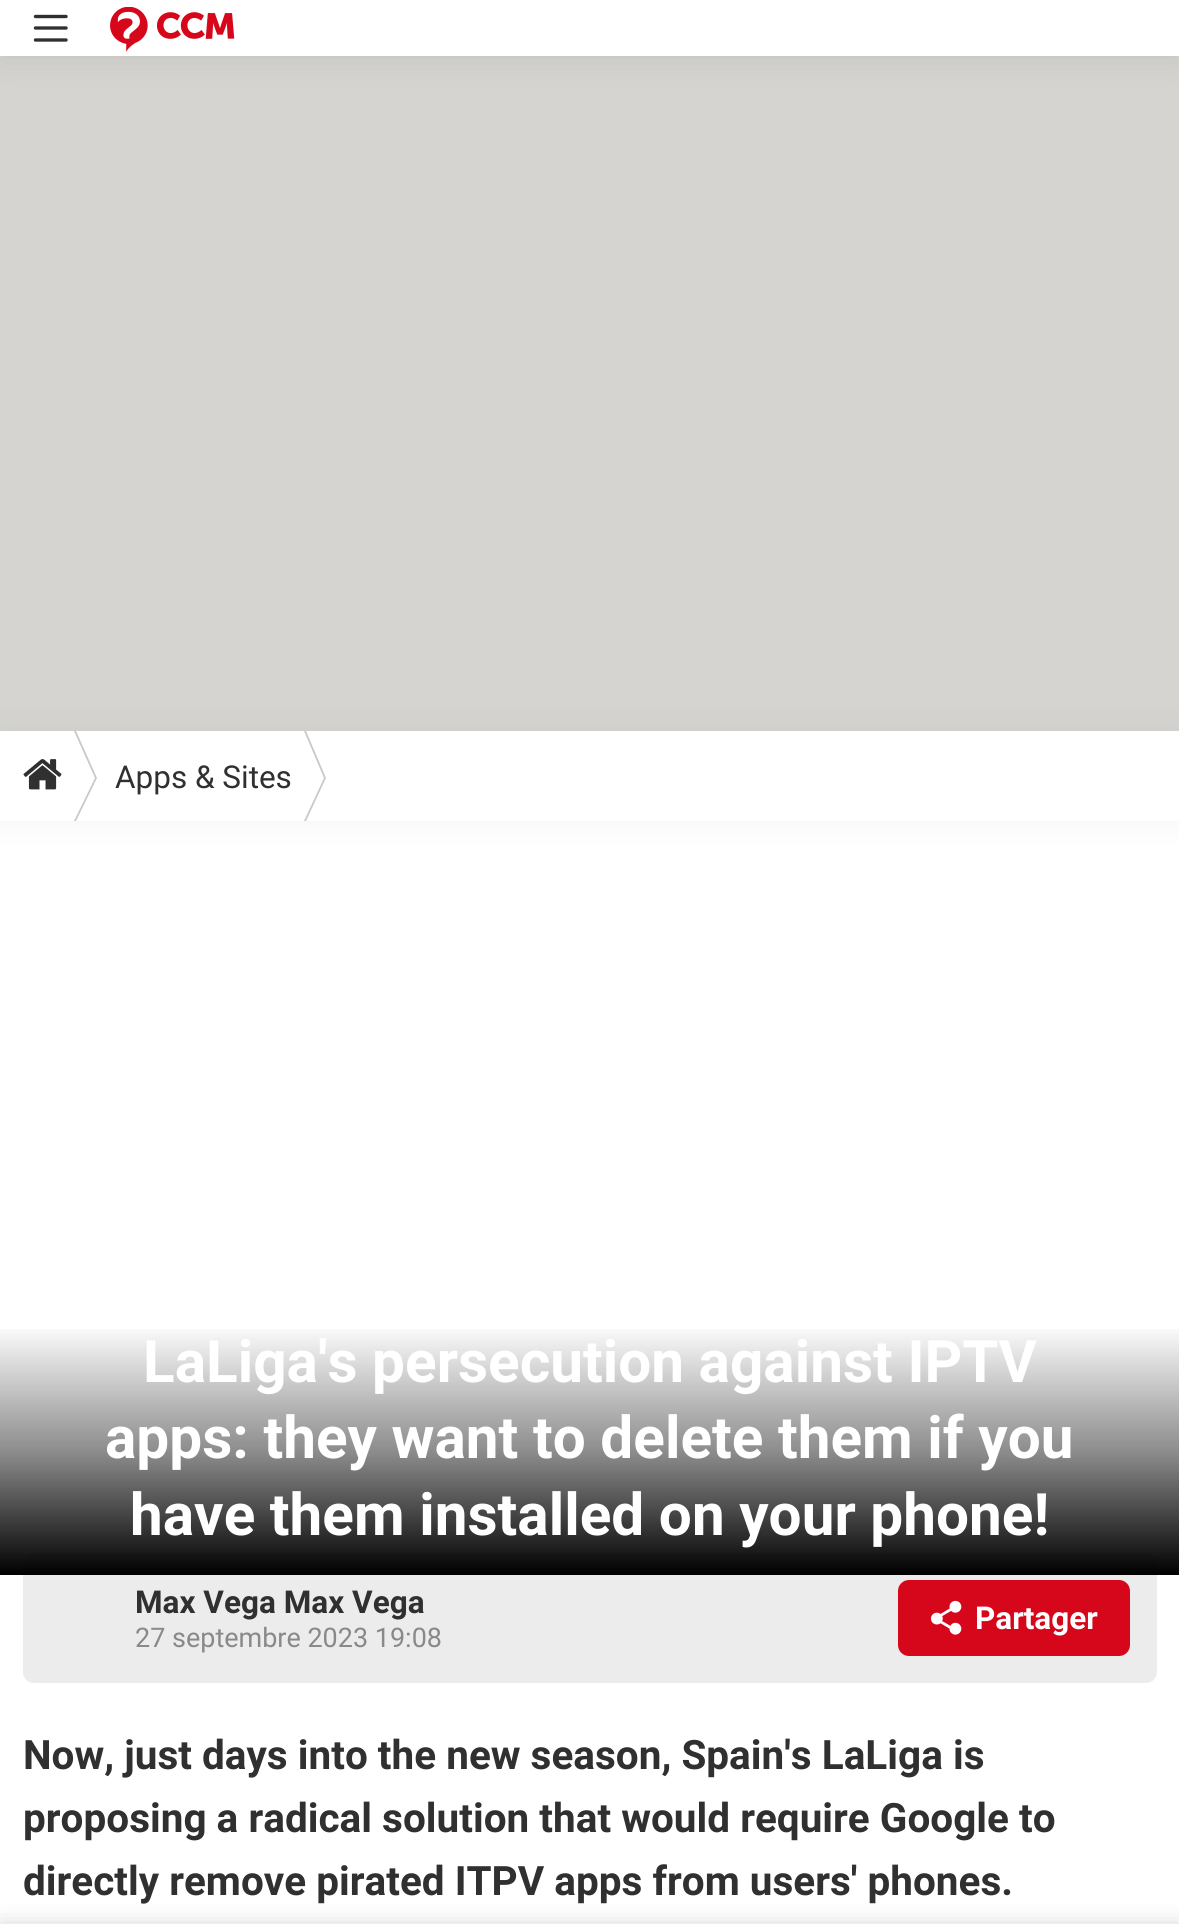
import math
import cairocffi as cairo

surface = cairo.ImageSurface(cairo.FORMAT_RGB24, 1179, 1924)
cr = cairo.Context(surface)
options = cairo.FontOptions()
options.set_hint_metrics(cairo.HINT_METRICS_OFF)
options.set_hint_style(cairo.HINT_STYLE_NONE)
cr.set_font_options(options)
cr.set_miter_limit(4)


def use_color(code):
    cr.set_source_rgb(*(v / 255 for v in bytes.fromhex(code[-6:])))


def round_rect(x, y, w, h, r):
    cr.new_sub_path()
    for i, (u, v) in enumerate([(x + w - r, y + h - r), (x + r, y + h - r), (x + r, y + r), (x + w - r, y + r)]):
        cr.arc(u, v, r, i * math.pi / 2, (i + 1) * math.pi / 2)
    cr.close_path()


def shadow(x, y, w, h, r, blur, alpha):
    cr.push_group_with_content(cairo.CONTENT_ALPHA)
    cr.set_operator(cairo.OPERATOR_SOURCE)
    for i in range(15, -16, -2):
        e = blur * i / 6
        if min(w, h) + 2 * e > 0:
            cr.set_source_rgba(0, 0, 0, alpha * math.erfc((i - 1) / 8.5) / 2)
            round_rect(x - e, y - e, w + 2 * e, h + 2 * e, max(0, min(r + e + blur * .6, min(w, h) / 2 + e)))
            cr.fill()
    cr.mask(cr.pop_group())


def picture(path, x, y, w, h):
    cr.save()
    cr.set_source_surface(cairo.ImageSurface.create_from_png(path), x, y)
    cr.rectangle(x, y, w, h)
    cr.fill()
    cr.restore()


use_color("#d5d4d0")
cr.paint()
use_color("#000000")
shadow(0, 0, 1179, 56, 0, 17, 0.1)
use_color("#ffffff")
cr.rectangle(0, 0, 1179, 56)
cr.fill()
cr.new_path()
cr.move_to(35.5, 28)
cr.line_to(66, 28)
cr.move_to(35.5, 16.5)
cr.line_to(66, 16.5)
cr.move_to(35.5, 40)
cr.line_to(66, 40)
use_color("#303030")
cr.set_line_width(3.4)
cr.set_line_cap(cairo.LINE_CAP_ROUND)
cr.stroke()
picture("img1.png", 110, 7, 125, 45)
use_color("#ffffff")
cr.rectangle(0, 821, 1179, 1103)
cr.fill()
use_color("#000000")
shadow(0, 731, 1179, 90, 0, 16, 0.05)
use_color("#ffffff")
cr.rectangle(0, 731, 1179, 90)
cr.fill()
picture("img2.png", 23, 759, 39, 31)
use_color("#c9c9c9")
cr.set_fill_rule(cairo.FILL_RULE_EVEN_ODD)
cr.new_path()
cr.move_to(74, 731)
cr.line_to(76, 731)
cr.line_to(97, 778)
cr.line_to(76, 821)
cr.line_to(74, 821)
cr.line_to(95, 778)
cr.close_path()
cr.fill()
cr.select_font_face("Roboto")
cr.set_font_size(31.5)
use_color("#303030")
cr.move_to(115, 788)
cr.show_text("Apps & Sites")
use_color("#c9c9c9")
cr.new_path()
cr.move_to(304, 731)
cr.line_to(306, 731)
cr.line_to(326, 778)
cr.line_to(306, 821)
cr.line_to(304, 821)
cr.line_to(324, 778)
cr.close_path()
cr.fill()
use_color("#ececec")
round_rect(23, 1553, 1134, 130, 11)
cr.fill()
gradient = cairo.LinearGradient(590, 1323, 590, 1575)
gradient.add_color_stop_rgba(0, 0, 0, 0, 0)
gradient.add_color_stop_rgba(0.51, 0, 0, 0, 0.45)
gradient.add_color_stop_rgba(1, 0, 0, 0, 1)
cr.set_source(gradient)
cr.rectangle(0, 1329, 1179, 246)
cr.fill()
cr.select_font_face("Roboto", cairo.FONT_SLANT_NORMAL, cairo.FONT_WEIGHT_BOLD)
cr.set_font_size(58.5)
use_color("#ffffff")
cr.move_to(143, 1382)
cr.show_text("LaLiga's persecution against IPTV")
cr.move_to(105, 1458)
cr.show_text("apps: they want to delete them if you")
cr.move_to(130, 1535)
cr.show_text("have them installed on your phone!")
cr.set_font_size(31.5)
use_color("#303030")
cr.move_to(135, 1613)
cr.show_text("Max Vega Max Vega")
cr.select_font_face("Roboto")
cr.set_font_size(27)
use_color("#898989")
cr.move_to(135, 1647)
cr.show_text("27 septembre 2023 19:08")
use_color("#d6071b")
round_rect(900.5, 1582.5, 227, 71, 8.5)
cr.fill_preserve()
cr.set_line_width(5)
cr.set_line_cap(cairo.LINE_CAP_BUTT)
cr.stroke()
picture("img3.png", 930, 1600, 32, 35)
cr.select_font_face("Roboto", cairo.FONT_SLANT_NORMAL, cairo.FONT_WEIGHT_BOLD)
cr.set_font_size(31.5)
use_color("#ffffff")
cr.move_to(975, 1629)
cr.show_text("Partager")
cr.set_font_size(40.5)
use_color("#303030")
cr.move_to(23, 1769)
cr.show_text("Now, just days into the new season, Spain's LaLiga is")
cr.move_to(23, 1832)
cr.show_text("proposing a radical solution that would require Google to")
cr.move_to(23, 1895)
cr.show_text("directly remove pirated ITPV apps from users' phones.")
use_color("#000000")
shadow(0, 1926, 1179, 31, 0, 11, 0.2)
surface.write_to_png("result.png")
